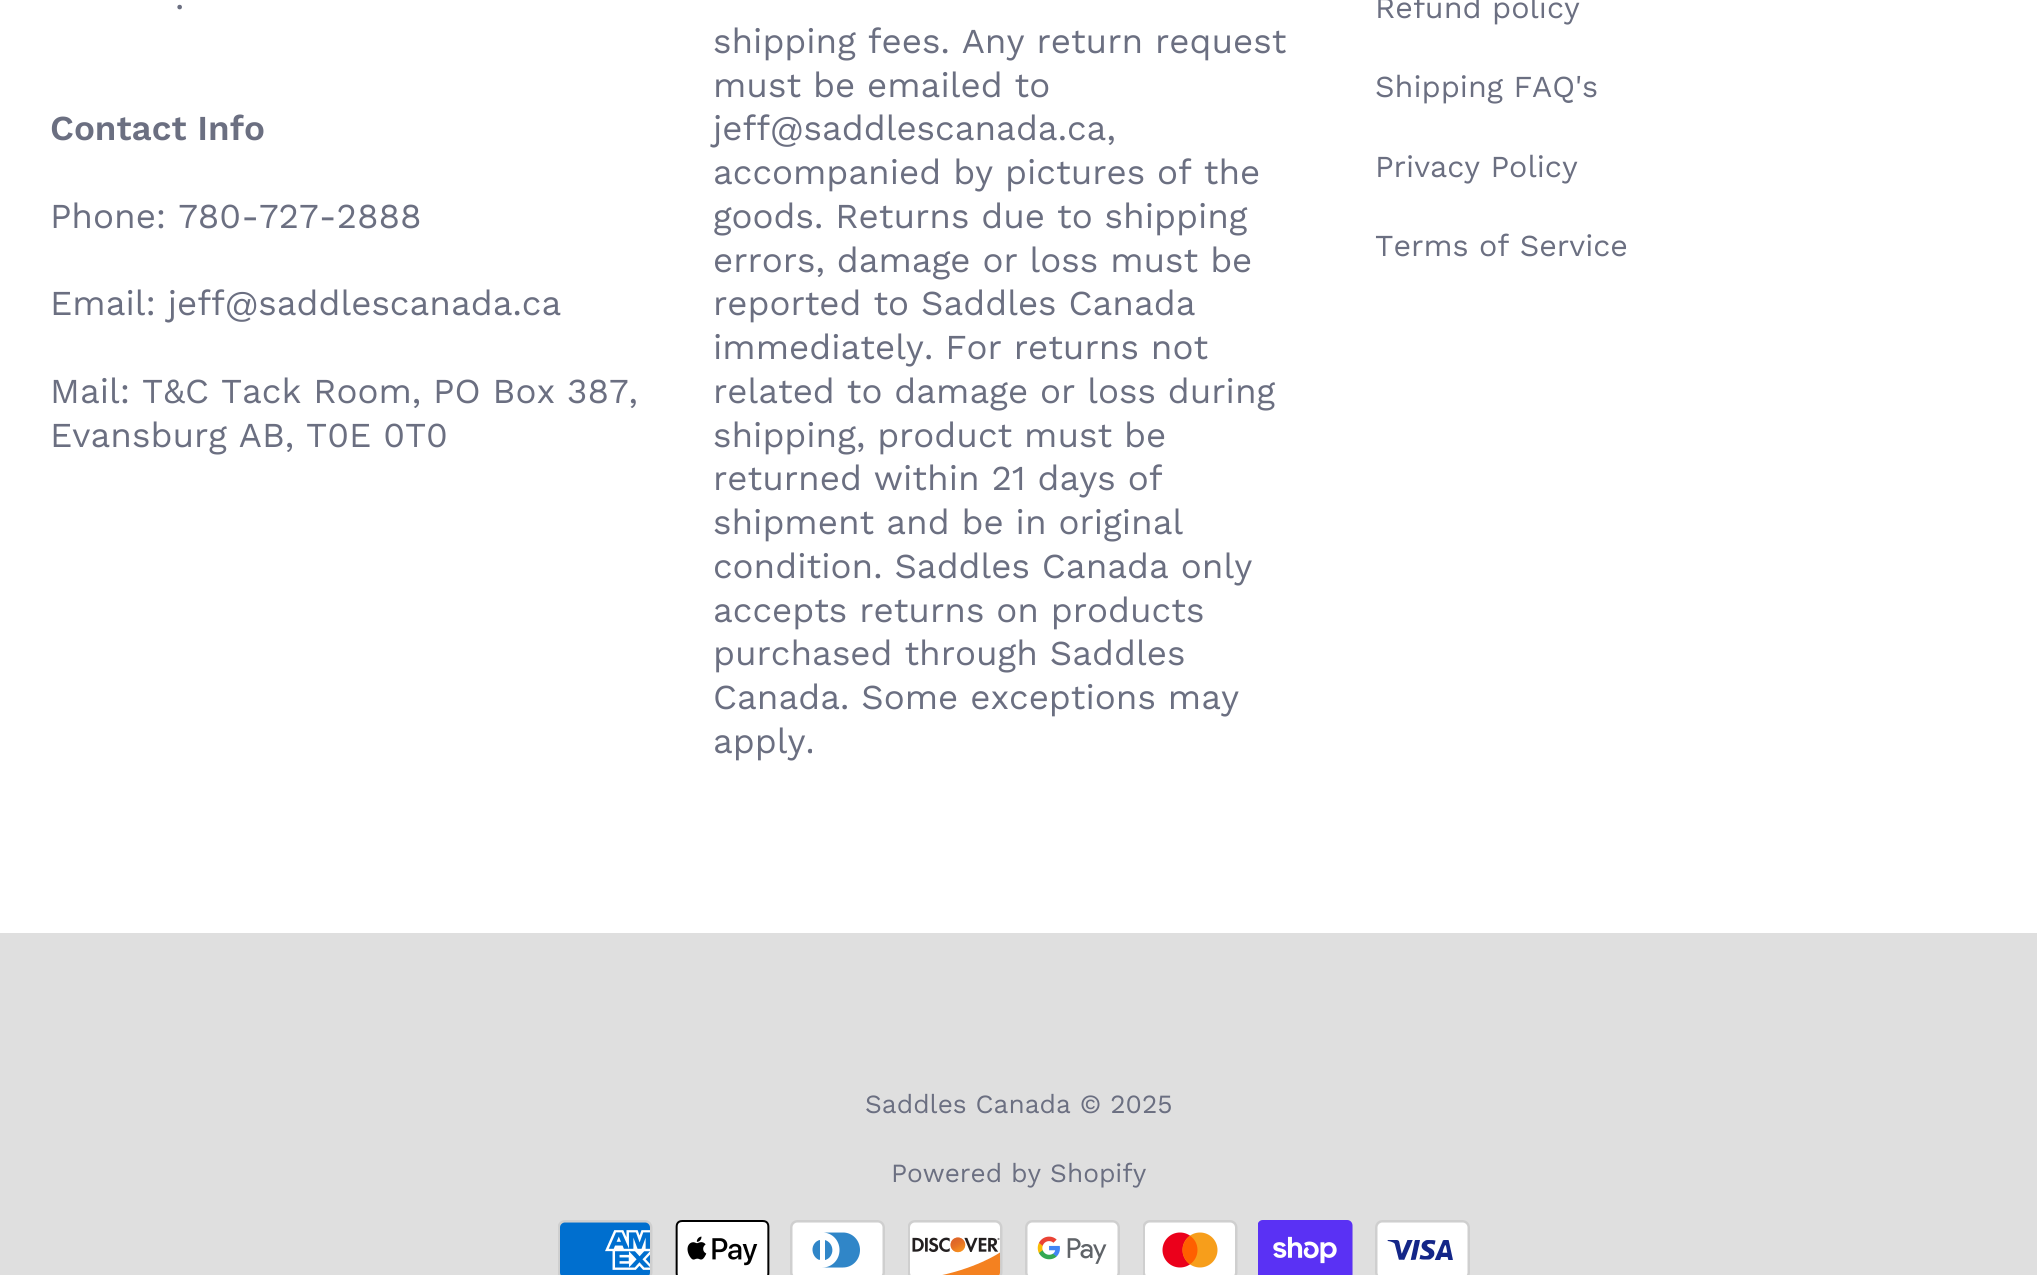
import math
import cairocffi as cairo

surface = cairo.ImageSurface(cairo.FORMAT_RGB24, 2037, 1275)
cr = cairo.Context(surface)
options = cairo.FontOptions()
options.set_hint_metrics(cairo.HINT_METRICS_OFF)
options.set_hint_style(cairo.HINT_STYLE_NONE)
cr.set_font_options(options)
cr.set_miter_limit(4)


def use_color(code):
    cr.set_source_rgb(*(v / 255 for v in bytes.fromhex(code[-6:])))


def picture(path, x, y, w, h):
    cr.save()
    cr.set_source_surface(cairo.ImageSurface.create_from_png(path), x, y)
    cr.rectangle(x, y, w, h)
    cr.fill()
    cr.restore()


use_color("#ffffff")
cr.paint()
cr.select_font_face("Work Sans")
cr.set_font_size(35)
use_color("#6b6f81")
cr.move_to(175, 9)
cr.show_text(".")
cr.select_font_face("Work Sans SemiBold")
cr.move_to(50, 140)
cr.show_text("Contact Info")
cr.select_font_face("Work Sans")
cr.move_to(50, 228)
cr.show_text("Phone: 780-727-2888")
cr.move_to(50, 315)
cr.show_text("Email: jeff@saddlescanada.ca")
cr.move_to(50, 403)
cr.show_text("Mail: T&C Tack Room, PO Box 387,")
cr.move_to(50, 447)
cr.show_text("Evansburg AB, T0E 0T0")
cr.move_to(713, 53)
cr.show_text("shipping fees. Any return request")
cr.move_to(713, 97)
cr.show_text("must be emailed to")
cr.move_to(713, 140)
cr.show_text("jeff@saddlescanada.ca,")
cr.move_to(713, 184)
cr.show_text("accompanied by pictures of the")
cr.move_to(713, 228)
cr.show_text("goods. Returns due to shipping")
cr.move_to(713, 272)
cr.show_text("errors, damage or loss must be")
cr.move_to(713, 315)
cr.show_text("reported to Saddles Canada")
cr.move_to(713, 359)
cr.show_text("immediately. For returns not")
cr.move_to(713, 403)
cr.show_text("related to damage or loss during")
cr.move_to(713, 447)
cr.show_text("shipping, product must be")
cr.move_to(713, 490)
cr.show_text("returned within 21 days of")
cr.move_to(713, 534)
cr.show_text("shipment and be in original")
cr.move_to(713, 578)
cr.show_text("condition. Saddles Canada only")
cr.move_to(713, 622)
cr.show_text("accepts returns on products")
cr.move_to(713, 665)
cr.show_text("purchased through Saddles")
cr.move_to(713, 709)
cr.show_text("Canada. Some exceptions may")
cr.move_to(713, 753)
cr.show_text("apply.")
cr.set_font_size(30.5)
cr.move_to(1375, 18)
cr.show_text("Refund policy")
cr.move_to(1375, 97)
cr.show_text("Shipping FAQ's")
cr.move_to(1375, 177)
cr.show_text("Privacy Policy")
cr.move_to(1375, 256)
cr.show_text("Terms of Service")
use_color("#dfdfdf")
cr.rectangle(0, 933, 2037, 342)
cr.fill()
cr.set_font_size(26.25)
use_color("#6b6f81")
cr.move_to(865, 1113)
cr.show_text("Saddles Canada © 2025")
cr.move_to(891, 1182)
cr.show_text("Powered by Shopify")
picture("img1.png", 558, 1220, 95, 55)
picture("img2.png", 675, 1220, 95, 55)
picture("img3.png", 790, 1220, 95, 55)
picture("img4.png", 908, 1220, 95, 55)
picture("img5.png", 1025, 1220, 95, 55)
picture("img6.png", 1143, 1220, 95, 55)
picture("img7.png", 1258, 1220, 95, 55)
picture("img8.png", 1375, 1220, 95, 55)
surface.write_to_png("result.png")
